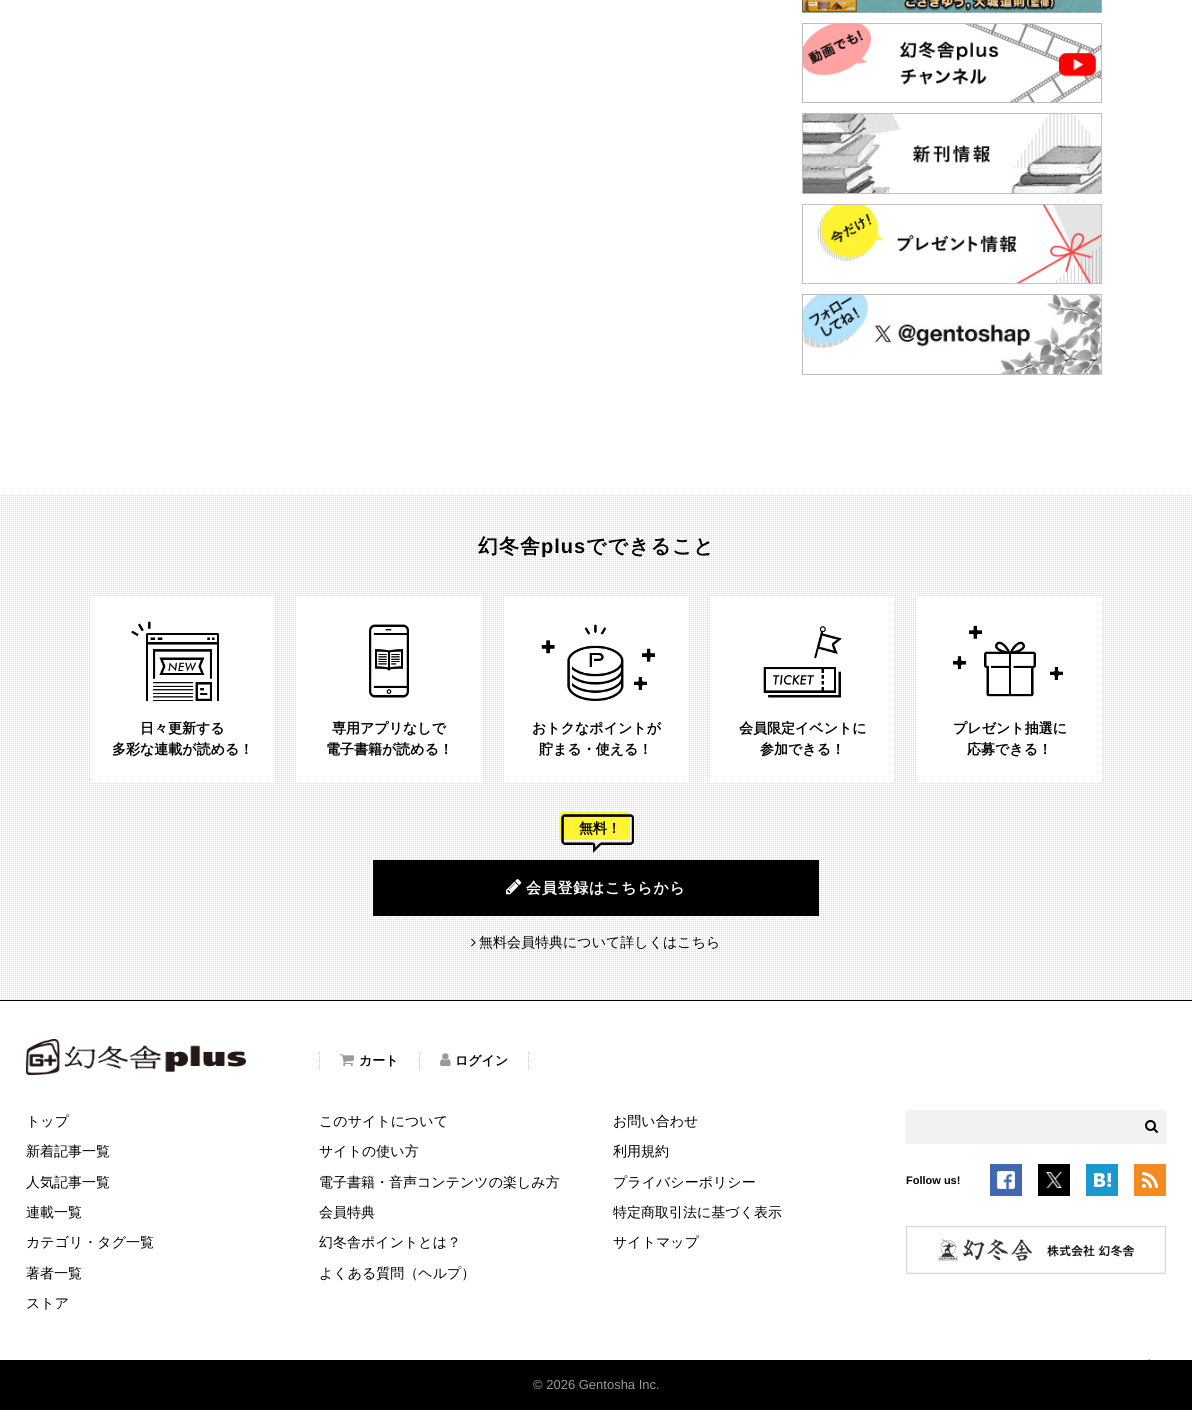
import math
import cairocffi as cairo

surface = cairo.ImageSurface(cairo.FORMAT_RGB24, 1192, 1410)
cr = cairo.Context(surface)
options = cairo.FontOptions()
options.set_hint_metrics(cairo.HINT_METRICS_OFF)
options.set_hint_style(cairo.HINT_STYLE_NONE)
cr.set_font_options(options)
cr.set_miter_limit(4)


def use_color(code):
    cr.set_source_rgb(*(v / 255 for v in bytes.fromhex(code[-6:])))


def spaced_text(x, y, s, letter, word):
    cr.move_to(x, y)
    for ch in s:
        cr.show_text(ch)
        cr.rel_move_to(letter + word * (ch == ' '), 0)


def picture(path, x, y, w, h):
    cr.save()
    cr.set_source_surface(cairo.ImageSurface.create_from_png(path), x, y)
    cr.rectangle(x, y, w, h)
    cr.fill()
    cr.restore()


use_color("#ffffff")
cr.paint()
picture("img1.png", 802, 0, 300, 13)
picture("img2.png", 802, 23, 300, 80)
picture("img3.png", 802, 113, 300, 81)
picture("img4.png", 802, 204, 300, 80)
picture("img5.png", 802, 294, 300, 81)
picture("img6.png", 1, 495, 1191, 505)
cr.select_font_face("WenQuanYi Zen Hei", cairo.FONT_SLANT_NORMAL, cairo.FONT_WEIGHT_BOLD)
cr.set_font_size(20)
use_color("#000000")
spaced_text(478, 553, "幻冬舎", 1, 0)
cr.select_font_face("Liberation Sans", cairo.FONT_SLANT_NORMAL, cairo.FONT_WEIGHT_BOLD)
spaced_text(541, 553, "plus", 1, 0)
cr.select_font_face("WenQuanYi Zen Hei", cairo.FONT_SLANT_NORMAL, cairo.FONT_WEIGHT_BOLD)
spaced_text(586, 553, "でできること", 1, 0)
use_color("#ffffff")
cr.rectangle(91, 597, 183, 185)
cr.fill()
picture("img7.png", 131, 621, 88, 80)
cr.set_font_size(14)
use_color("#000000")
cr.move_to(140, 733)
cr.show_text("日々更新する")
cr.move_to(112, 754)
cr.show_text("多彩な連載が読める！")
use_color("#ffffff")
cr.rectangle(297, 597, 185, 185)
cr.fill()
picture("img8.png", 369, 624, 40, 74)
use_color("#000000")
cr.move_to(332, 733)
cr.show_text("専用アプリなしで")
cr.move_to(326, 754)
cr.show_text("電子書籍が読める！")
use_color("#ffffff")
cr.rectangle(505, 597, 183, 185)
cr.fill()
picture("img9.png", 541, 624, 114, 77)
use_color("#000000")
cr.move_to(532, 733)
cr.show_text("おトクなポイントが")
cr.move_to(539, 754)
cr.show_text("貯まる・使える！")
use_color("#ffffff")
cr.rectangle(711, 597, 183, 185)
cr.fill()
picture("img10.png", 763, 626, 79, 72)
use_color("#000000")
cr.move_to(739, 733)
cr.show_text("会員限定イベントに")
cr.move_to(760, 754)
cr.show_text("参加できる！")
use_color("#ffffff")
cr.rectangle(917, 597, 185, 185)
cr.fill()
picture("img11.png", 953, 625, 110, 72)
use_color("#000000")
cr.move_to(953, 733)
cr.show_text("プレゼント抽選に")
cr.move_to(967, 754)
cr.show_text("応募できる！")
picture("img12.png", 559, 812, 75, 41)
cr.move_to(579, 833)
cr.show_text("無料！")
cr.rectangle(373, 860, 446, 56)
cr.fill()
picture("img13.png", 506, 879, 16, 16)
cr.set_font_size(15)
use_color("#ffffff")
spaced_text(526, 893, "会員登録はこちらから", 0.75, 0)
picture("img14.png", 471, 938, 5, 9)
cr.select_font_face("WenQuanYi Zen Hei Medium")
cr.set_font_size(14)
use_color("#000000")
cr.move_to(479, 947)
cr.show_text("無料会員特典について詳しくはこちら")
cr.rectangle(0, 1000, 1192, 1)
cr.fill()
picture("img15.png", 26, 1039, 220, 36)
cr.new_path()
cr.move_to(319.5, 1052)
cr.line_to(319.5, 1069)
use_color("#cccccc")
cr.set_line_width(1)
cr.set_dash([1, 1])
cr.stroke()
cr.new_path()
cr.move_to(419.5, 1052)
cr.line_to(419.5, 1069)
cr.stroke()
picture("img16.png", 340, 1054, 14, 12)
cr.select_font_face("WenQuanYi Zen Hei", cairo.FONT_SLANT_NORMAL, cairo.FONT_WEIGHT_BOLD)
cr.set_font_size(13)
use_color("#000000")
cr.move_to(359, 1065)
cr.show_text("カート")
cr.new_path()
cr.move_to(528.5, 1052)
cr.line_to(528.5, 1069)
use_color("#cccccc")
cr.stroke()
picture("img17.png", 440, 1053, 11, 14)
use_color("#000000")
cr.move_to(455, 1065)
cr.show_text("ログイン")
cr.select_font_face("WenQuanYi Zen Hei Medium")
cr.set_font_size(14)
cr.move_to(26, 1126)
cr.show_text("トップ")
cr.move_to(26, 1156)
cr.show_text("新着記事一覧")
cr.move_to(26, 1187)
cr.show_text("人気記事一覧")
cr.move_to(26, 1217)
cr.show_text("連載一覧")
cr.move_to(26, 1247)
cr.show_text("カテゴリ・タグ一覧")
cr.move_to(26, 1278)
cr.show_text("著者一覧")
cr.move_to(26, 1308)
cr.show_text("ストア")
cr.move_to(319, 1126)
cr.show_text("このサイトについて")
cr.move_to(319, 1156)
cr.show_text("サイトの使い方")
cr.move_to(319, 1187)
cr.show_text("電子書籍・音声コンテンツの楽しみ方")
cr.move_to(319, 1217)
cr.show_text("会員特典")
cr.move_to(319, 1247)
cr.show_text("幻冬舎ポイントとは？")
cr.move_to(319, 1278)
cr.show_text("よくある質問（ヘルプ）")
cr.move_to(613, 1126)
cr.show_text("お問い合わせ")
cr.move_to(613, 1156)
cr.show_text("利用規約")
cr.move_to(613, 1187)
cr.show_text("プライバシーポリシー")
cr.move_to(613, 1217)
cr.show_text("特定商取引法に基づく表示")
cr.move_to(613, 1247)
cr.show_text("サイトマップ")
use_color("#f2f2f2")
cr.rectangle(906, 1110, 260, 34)
cr.fill()
picture("img18.png", 1145, 1120, 13, 13)
cr.select_font_face("Liberation Sans", cairo.FONT_SLANT_NORMAL, cairo.FONT_WEIGHT_BOLD)
cr.set_font_size(11)
use_color("#000000")
cr.move_to(906, 1184)
cr.show_text("Follow us!")
picture("img19.png", 990, 1164, 32, 32)
picture("img20.png", 1038, 1164, 32, 32)
picture("img21.png", 1086, 1164, 32, 32)
picture("img22.png", 1134, 1164, 32, 32)
picture("img23.png", 906, 1226, 260, 48)
cr.rectangle(0, 1360, 1192, 50)
cr.fill()
cr.select_font_face("Liberation Sans")
cr.set_font_size(13)
use_color("#999999")
cr.move_to(533, 1389)
cr.show_text("© 2026 Gentosha Inc.")
picture("img24.png", 1148, 1359, 2, 1)
surface.write_to_png("result.png")
